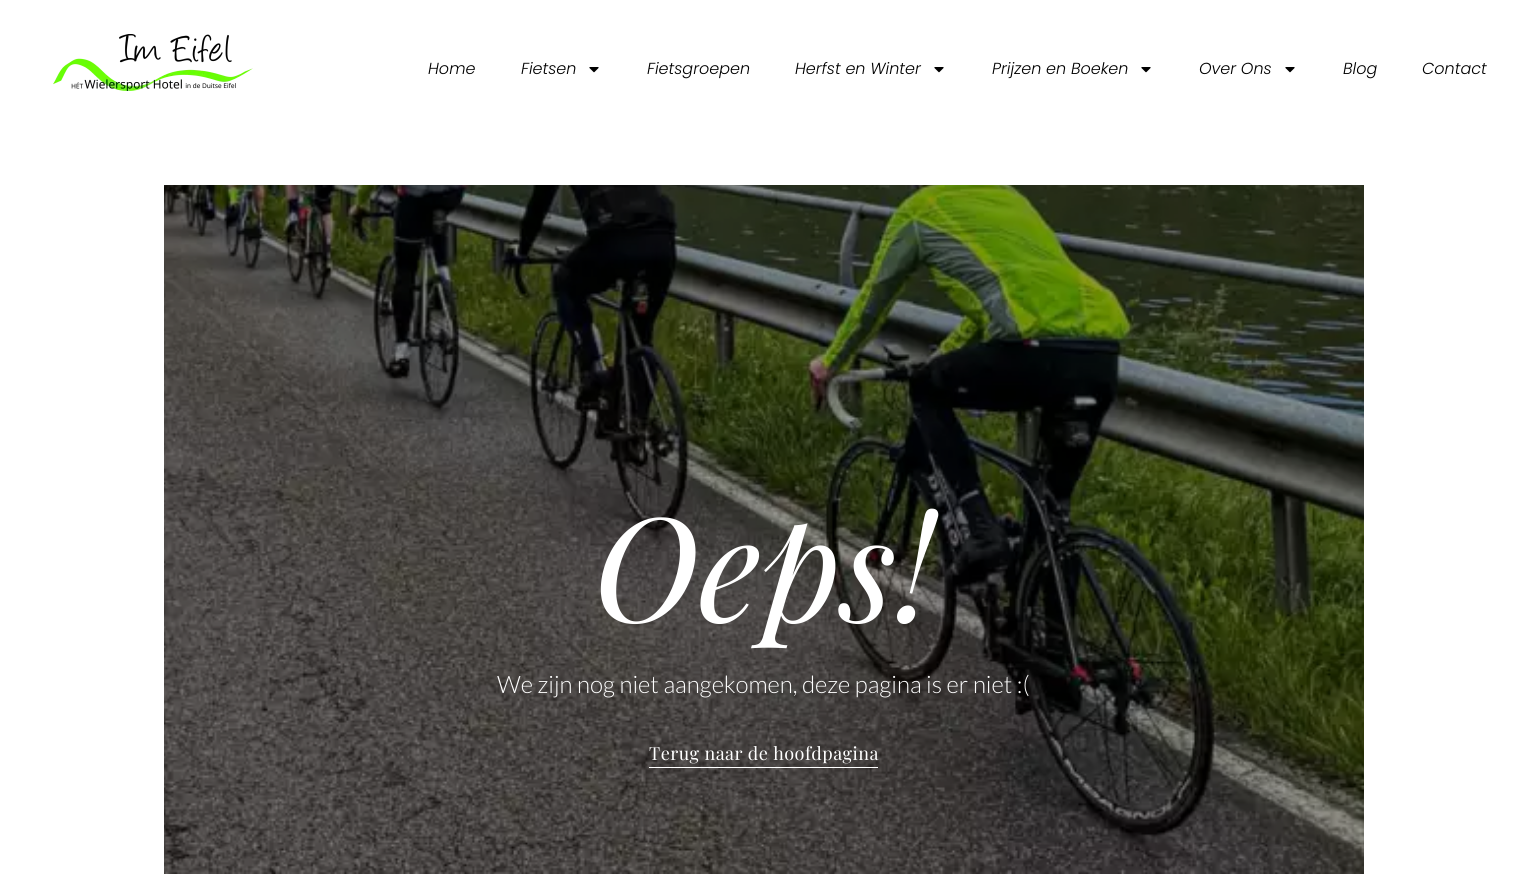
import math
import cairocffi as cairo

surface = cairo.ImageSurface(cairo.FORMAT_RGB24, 1527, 874)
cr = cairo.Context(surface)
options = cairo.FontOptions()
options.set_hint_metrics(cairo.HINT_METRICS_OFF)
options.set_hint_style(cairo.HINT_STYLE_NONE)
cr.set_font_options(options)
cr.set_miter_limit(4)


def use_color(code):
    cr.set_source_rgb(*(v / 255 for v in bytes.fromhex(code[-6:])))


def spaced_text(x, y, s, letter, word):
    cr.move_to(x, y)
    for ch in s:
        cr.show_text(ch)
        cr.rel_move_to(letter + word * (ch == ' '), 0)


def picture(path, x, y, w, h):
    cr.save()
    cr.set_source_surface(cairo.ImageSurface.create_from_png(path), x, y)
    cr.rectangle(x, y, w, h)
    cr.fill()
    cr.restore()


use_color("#ffffff")
cr.paint()
picture("img1.png", 53, 34, 200, 57)
cr.select_font_face("Poppins Light", cairo.FONT_SLANT_ITALIC)
cr.set_font_size(16)
use_color("#000000")
cr.move_to(428, 74)
cr.show_text("Home")
cr.move_to(521, 74)
cr.show_text("Fietsen")
picture("img2.png", 589, 67, 10, 6)
cr.move_to(647, 74)
cr.show_text("Fietsgroepen")
cr.move_to(795, 74)
cr.show_text("Herfst en Winter")
picture("img2.png", 934, 67, 10, 6)
cr.move_to(992, 74)
cr.show_text("Prijzen en Boeken")
picture("img2.png", 1141, 67, 10, 6)
cr.move_to(1199, 74)
cr.show_text("Over Ons")
picture("img2.png", 1285, 67, 10, 6)
cr.move_to(1343, 74)
cr.show_text("Blog")
cr.move_to(1422, 74)
cr.show_text("Contact")
picture("img3.png", 164, 185, 1200, 689)
cr.select_font_face("Playfair Display", cairo.FONT_SLANT_ITALIC)
cr.set_font_size(145)
use_color("#ffffff")
cr.move_to(593, 622)
cr.show_text("Oeps!")
cr.select_font_face("Lato Light")
cr.set_font_size(24)
spaced_text(497, 693, "We zijn nog niet aangekomen, deze pagina is er niet :(", -0.05, 0)
cr.rectangle(649, 767, 229, 1)
cr.fill()
cr.select_font_face("Playfair Display")
cr.set_font_size(18)
spaced_text(649, 760, "Terug naar de hoofdpagina", 0.45, 0)
surface.write_to_png("result.png")
